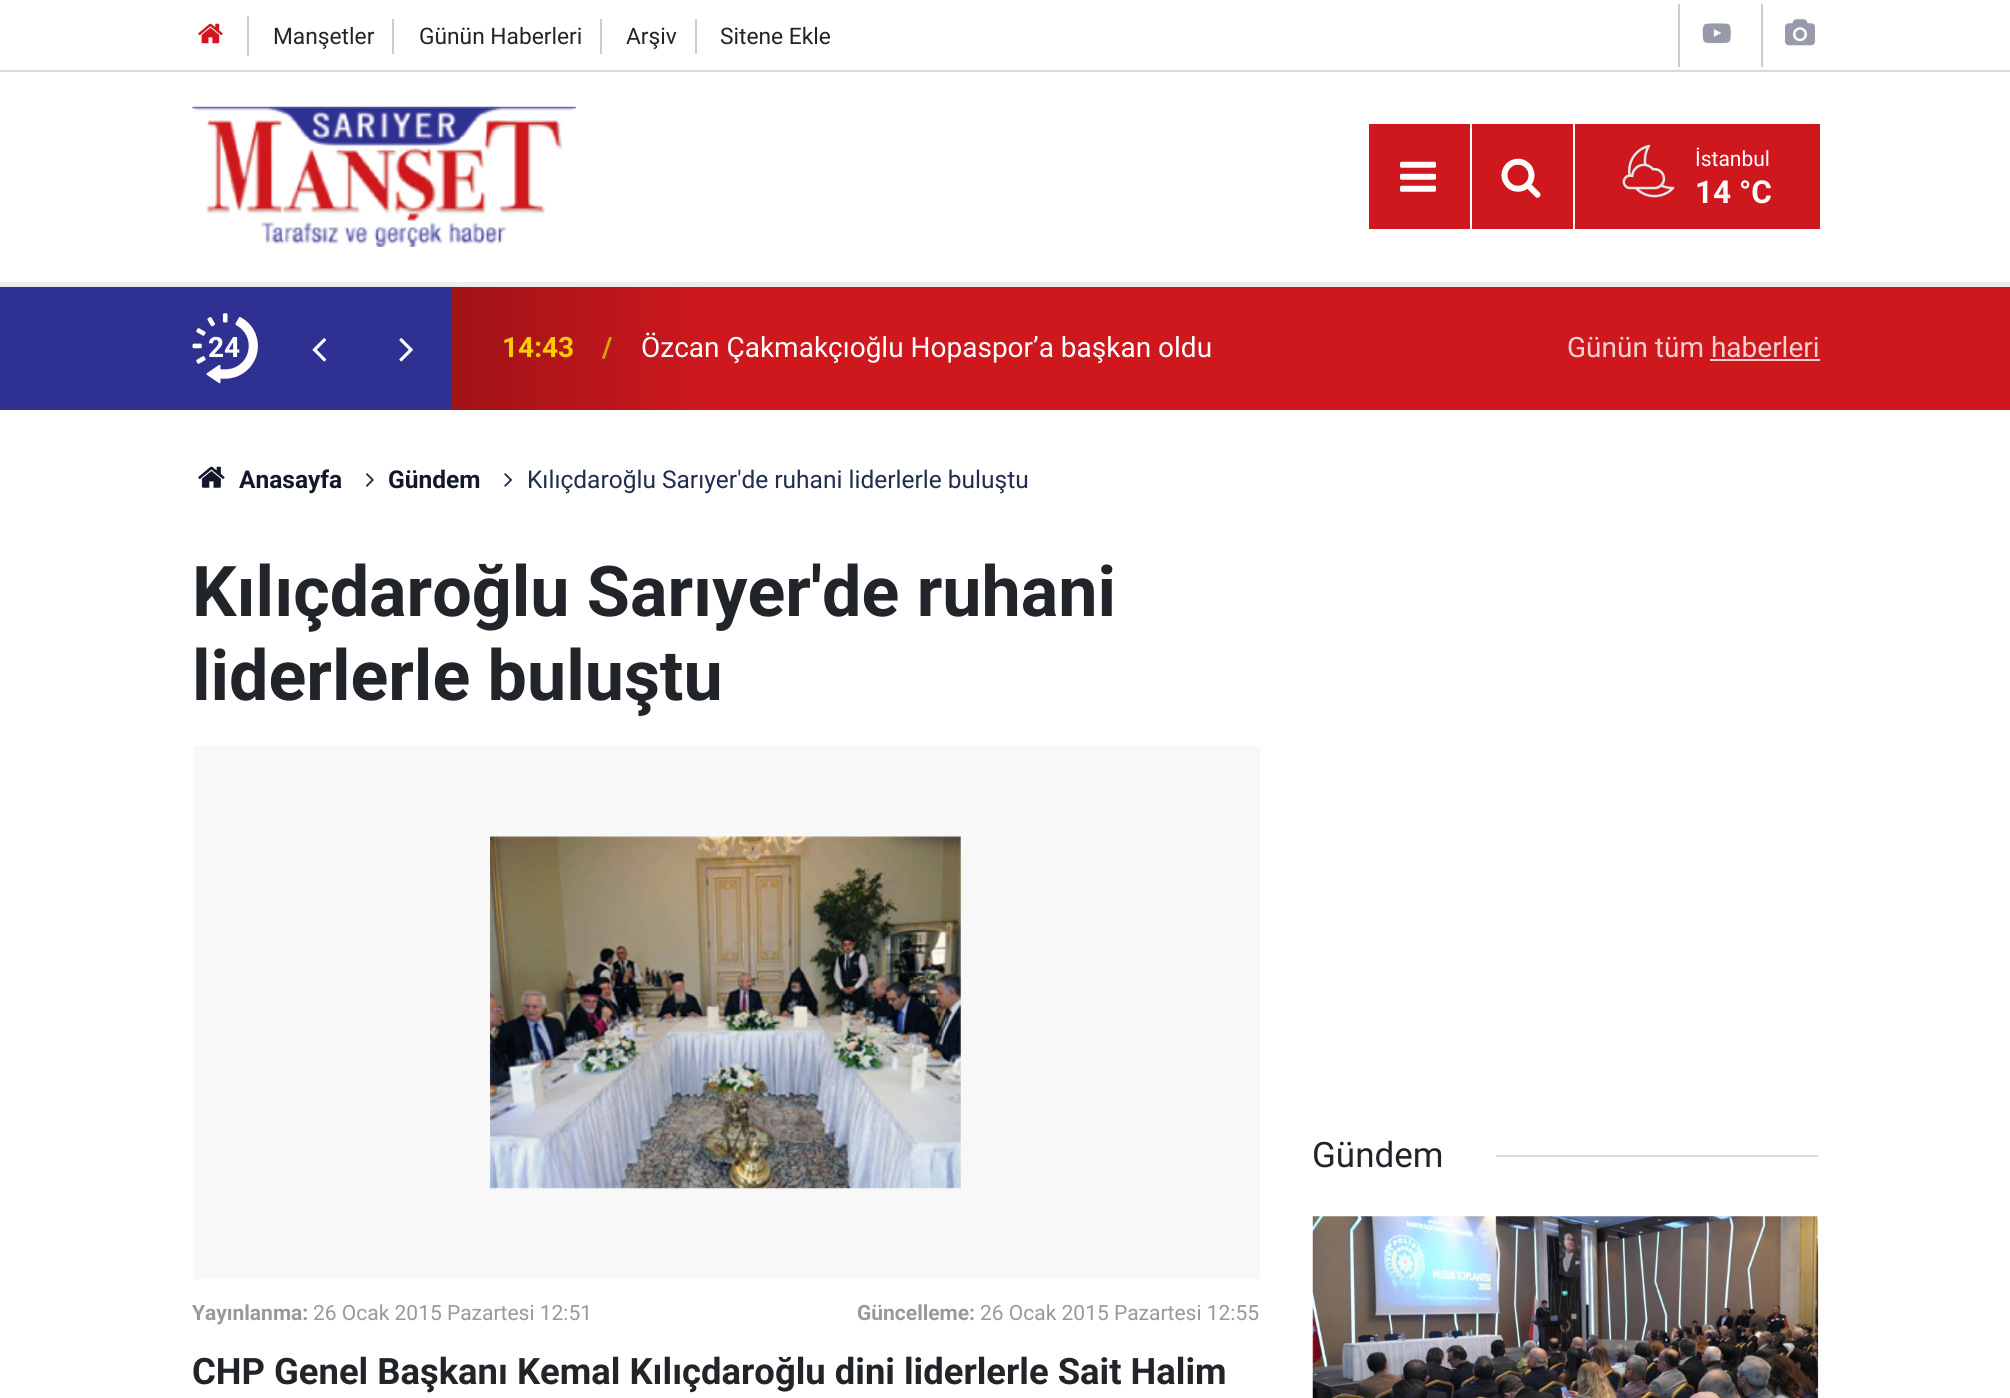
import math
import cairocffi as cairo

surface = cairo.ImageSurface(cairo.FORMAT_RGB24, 2010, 1398)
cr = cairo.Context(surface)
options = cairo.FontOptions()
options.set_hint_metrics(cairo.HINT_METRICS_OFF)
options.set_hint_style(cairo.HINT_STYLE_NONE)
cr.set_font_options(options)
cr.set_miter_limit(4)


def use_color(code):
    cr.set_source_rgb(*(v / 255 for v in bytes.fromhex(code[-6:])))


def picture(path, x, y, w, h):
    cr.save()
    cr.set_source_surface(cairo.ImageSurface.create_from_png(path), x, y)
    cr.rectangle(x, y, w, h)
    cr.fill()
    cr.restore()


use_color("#ffffff")
cr.paint()
use_color("#cccccc")
cr.rectangle(247, 16, 2, 40)
cr.fill()
picture("img1.png", 198, 23, 25, 21)
cr.rectangle(392, 19, 2, 35)
cr.fill()
cr.select_font_face("Roboto")
cr.set_font_size(22.75)
use_color("#212529")
cr.move_to(273, 44)
cr.show_text("Manşetler")
use_color("#cccccc")
cr.rectangle(600, 19, 2, 35)
cr.fill()
use_color("#212529")
cr.move_to(419, 44)
cr.show_text("Günün Haberleri")
use_color("#cccccc")
cr.rectangle(695, 19, 2, 35)
cr.fill()
use_color("#212529")
cr.move_to(626, 44)
cr.show_text("Arşiv")
cr.move_to(720, 44)
cr.show_text("Sitene Ekle")
use_color("#cccccc")
cr.rectangle(1678, 4, 2, 63)
cr.fill()
picture("img2.png", 1702, 23, 29, 21)
cr.rectangle(1761, 4, 2, 63)
cr.fill()
picture("img3.png", 1785, 19, 30, 27)
use_color("#d7dae1")
cr.rectangle(0, 70, 2010, 2)
cr.fill()
use_color("#ecedee")
cr.rectangle(0, 282, 2010, 5)
cr.fill()
picture("img4.png", 192, 106, 384, 141)
use_color("#ce181e")
cr.rectangle(1369, 124, 101, 105)
cr.fill()
picture("img5.png", 1400, 161, 36, 31)
cr.rectangle(1472, 124, 101, 105)
cr.fill()
picture("img6.png", 1501, 158, 40, 40)
cr.rectangle(1575, 124, 245, 105)
cr.fill()
picture("img7.png", 1622, 144, 53, 54)
cr.set_font_size(21)
use_color("#ffffff")
cr.move_to(1695, 166)
cr.show_text("İstanbul")
cr.select_font_face("Roboto", cairo.FONT_SLANT_NORMAL, cairo.FONT_WEIGHT_BOLD)
cr.set_font_size(31.5)
cr.move_to(1695, 203)
cr.show_text("14 °C")
use_color("#2e3192")
cr.rectangle(0, 287, 193, 123)
cr.fill()
use_color("#ce181e")
cr.rectangle(1820, 287, 190, 123)
cr.fill()
gradient = cairo.LinearGradient(192, 348, 1819, 348)
gradient.add_color_stop_rgba(0.05, 0.18, 0.192, 0.573, 1)
gradient.add_color_stop_rgba(0.16, 0.18, 0.192, 0.573, 1)
gradient.add_color_stop_rgba(0.16, 0.627, 0.075, 0.09, 1)
gradient.add_color_stop_rgba(0.32, 0.808, 0.094, 0.118, 1)
cr.set_source(gradient)
cr.rectangle(193, 287, 1627, 123)
cr.fill()
picture("img8.png", 192, 313, 66, 71)
cr.set_font_size(28)
use_color("#ffffff")
cr.move_to(208, 357)
cr.show_text("24")
picture("img9.png", 312, 338, 15, 24)
picture("img10.png", 399, 338, 14, 24)
use_color("#ffcb05")
cr.move_to(502, 357)
cr.show_text("14:43")
use_color("#d1a600")
cr.move_to(602, 357)
cr.show_text("/")
cr.select_font_face("Roboto")
use_color("#ffffff")
cr.move_to(641, 357)
cr.show_text("Özcan Çakmakçıoğlu Hopaspor’a başkan oldu")
use_color("#f5d1d2")
cr.move_to(1567, 357)
cr.show_text("Günün tüm haberleri")
cr.rectangle(1710, 359, 110, 2)
cr.fill()
picture("img11.png", 198, 466, 27, 22)
cr.select_font_face("Roboto", cairo.FONT_SLANT_NORMAL, cairo.FONT_WEIGHT_BOLD)
cr.set_font_size(24.5)
use_color("#12182a")
cr.move_to(239, 488)
cr.show_text("Anasayfa")
picture("img12.png", 366, 473, 8, 14)
cr.move_to(388, 488)
cr.show_text("Gündem")
picture("img13.png", 504, 473, 9, 14)
cr.select_font_face("Roboto")
use_color("#212c4e")
cr.move_to(527, 488)
cr.show_text("Kılıçdaroğlu Sarıyer'de ruhani liderlerle buluştu")
cr.select_font_face("Roboto", cairo.FONT_SLANT_NORMAL, cairo.FONT_WEIGHT_BOLD)
cr.set_font_size(70)
use_color("#212529")
cr.move_to(192, 616)
cr.show_text("Kılıçdaroğlu Sarıyer'de ruhani")
cr.move_to(192, 700)
cr.show_text("liderlerle buluştu")
use_color("#f8f8f8")
cr.rectangle(193, 746, 1067, 533)
cr.fill()
picture("img14.png", 490, 836, 471, 353)
cr.set_font_size(21)
use_color("#999999")
cr.move_to(192, 1320)
cr.show_text("Yayınlanma:")
cr.select_font_face("Roboto")
cr.move_to(313, 1320)
cr.show_text("26 Ocak 2015 Pazartesi 12:51")
cr.select_font_face("Roboto", cairo.FONT_SLANT_NORMAL, cairo.FONT_WEIGHT_BOLD)
cr.move_to(857, 1320)
cr.show_text("Güncelleme:")
cr.select_font_face("Roboto")
cr.move_to(980, 1320)
cr.show_text("26 Ocak 2015 Pazartesi 12:55")
cr.select_font_face("Roboto", cairo.FONT_SLANT_NORMAL, cairo.FONT_WEIGHT_BOLD)
cr.set_font_size(36.4)
use_color("#212529")
cr.move_to(192, 1384)
cr.show_text("CHP Genel Başkanı Kemal Kılıçdaroğlu dini liderlerle Sait Halim")
cr.select_font_face("Roboto")
cr.set_font_size(35)
cr.move_to(1312, 1167)
cr.show_text("Gündem")
use_color("#d9dbe2")
cr.rectangle(1496, 1155, 322, 2)
cr.fill()
picture("img15.png", 1312, 1216, 507, 182)
surface.write_to_png("result.png")
